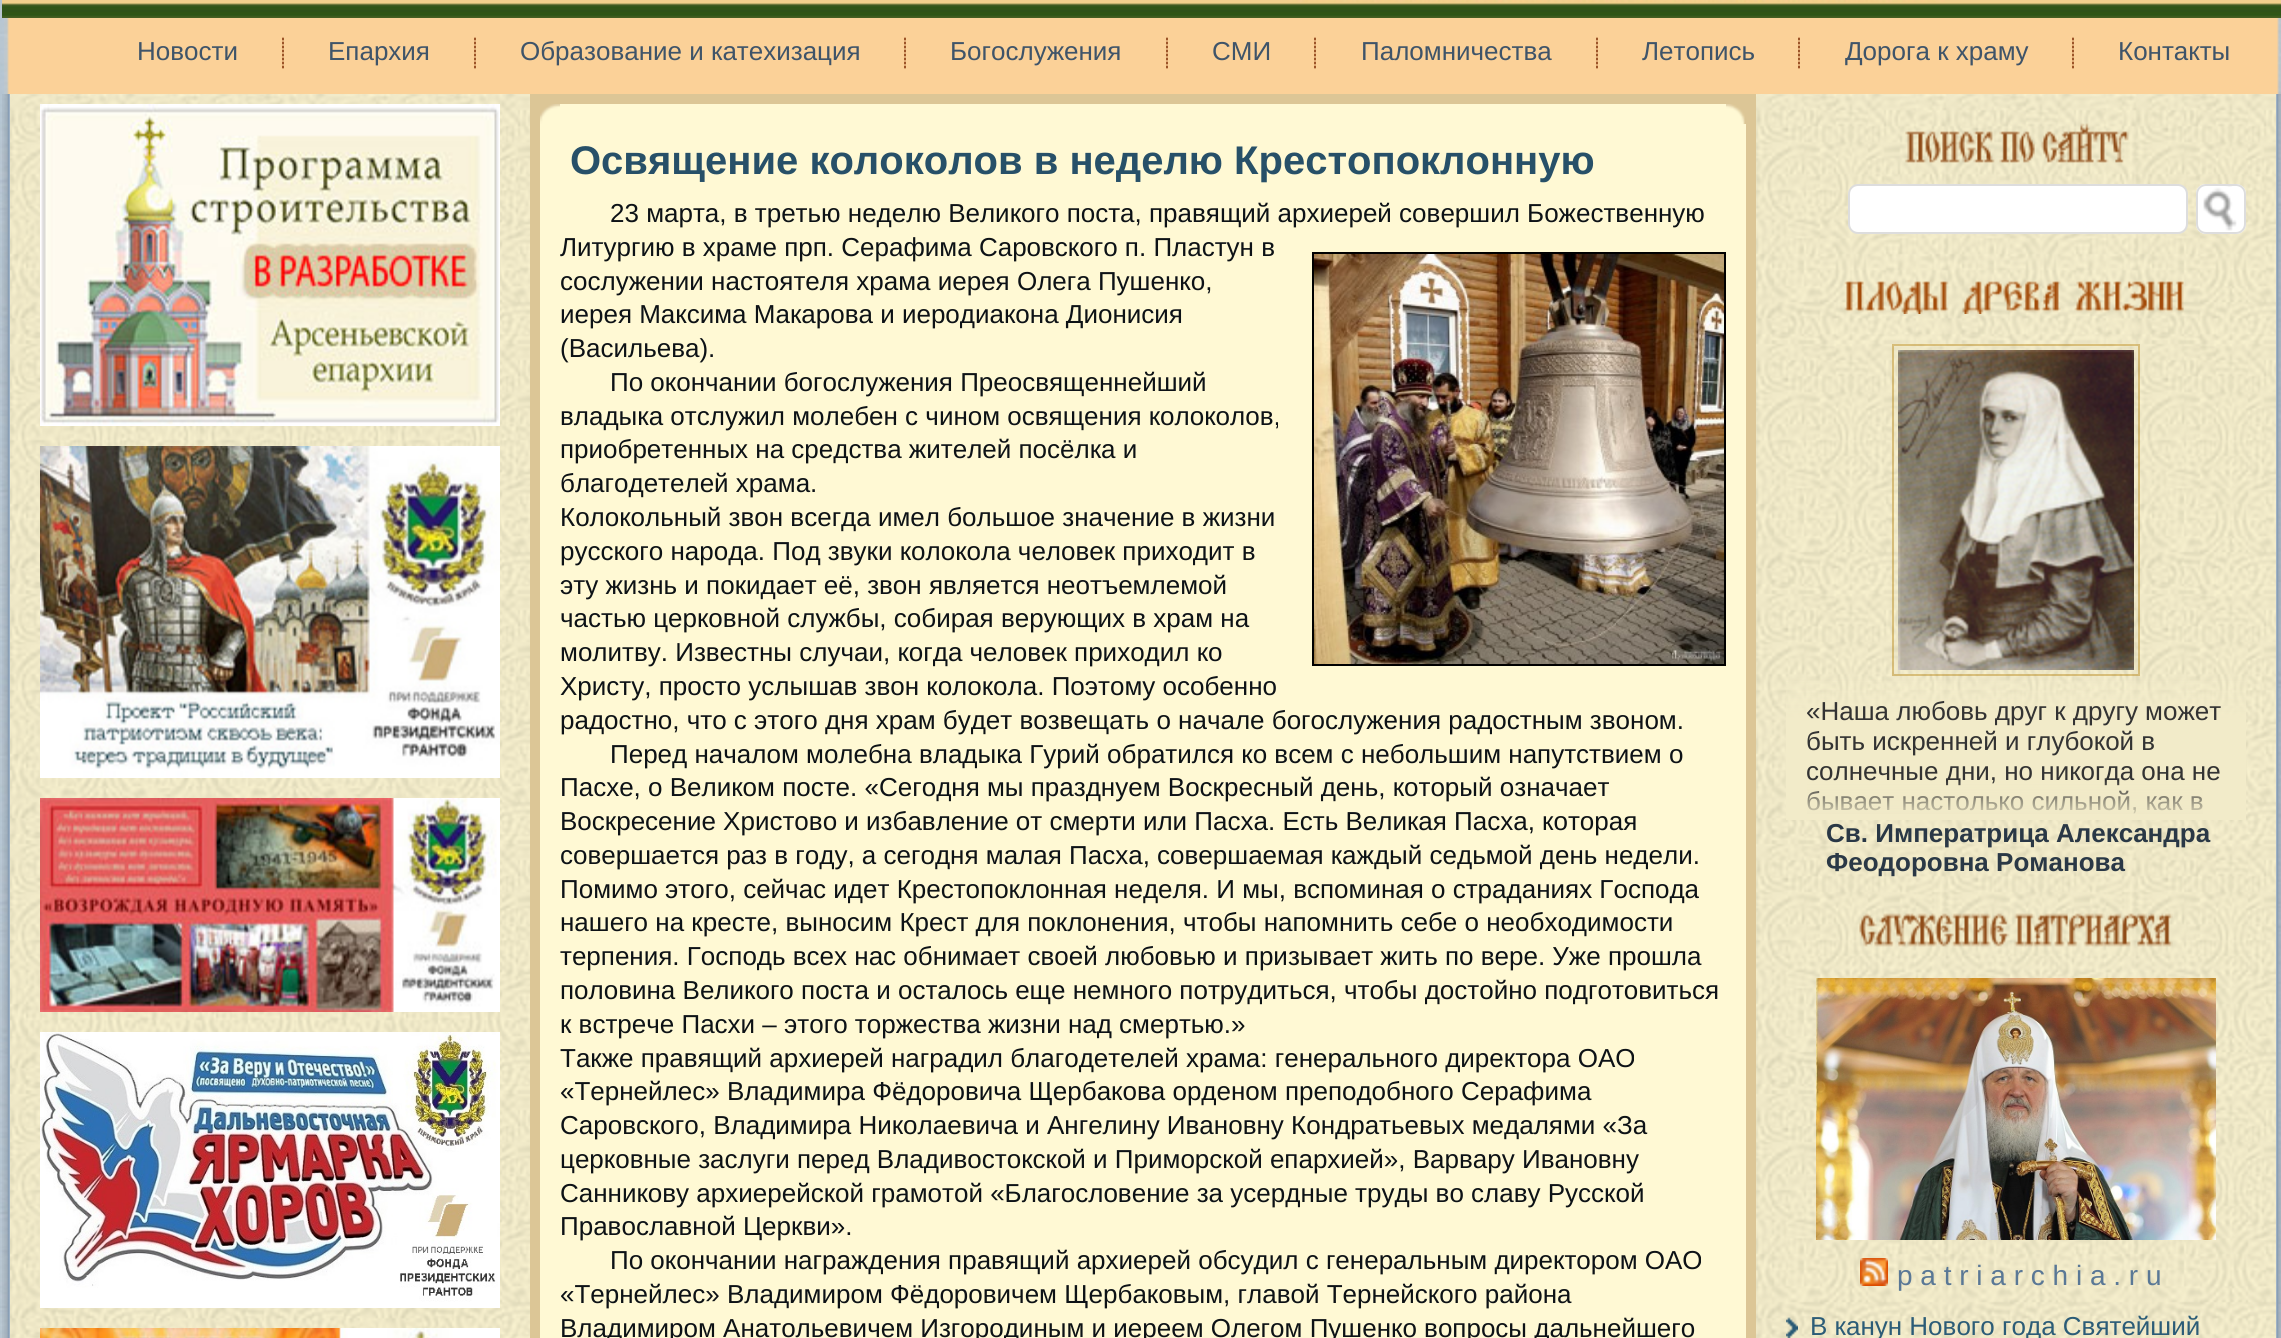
import math
import cairocffi as cairo

surface = cairo.ImageSurface(cairo.FORMAT_RGB24, 2281, 1338)
cr = cairo.Context(surface)
options = cairo.FontOptions()
options.set_hint_metrics(cairo.HINT_METRICS_OFF)
options.set_hint_style(cairo.HINT_STYLE_NONE)
cr.set_font_options(options)
cr.set_miter_limit(4)


def use_color(code):
    cr.set_source_rgb(*(v / 255 for v in bytes.fromhex(code[-6:])))


def round_rect(x, y, w, h, r):
    cr.new_sub_path()
    for i, (u, v) in enumerate([(x + w - r, y + h - r), (x + r, y + h - r), (x + r, y + r), (x + w - r, y + r)]):
        cr.arc(u, v, r, i * math.pi / 2, (i + 1) * math.pi / 2)
    cr.close_path()


def picture(path, x, y, w, h):
    cr.save()
    cr.set_source_surface(cairo.ImageSurface.create_from_png(path), x, y)
    cr.rectangle(x, y, w, h)
    cr.fill()
    cr.restore()


use_color("#ffffff")
cr.paint()
picture("img1.png", 0, 0, 2281, 1338)
picture("img2.png", 2, 0, 2279, 18)
picture("img3.png", 4, 18, 2266, 76)
picture("img4.png", 2270, 18, 11, 76)
cr.select_font_face("Liberation Sans")
cr.set_font_size(26)
use_color("#3f5469")
cr.move_to(137, 60)
cr.show_text("Новости")
picture("img5.png", 282, 37, 2, 32)
cr.move_to(328, 60)
cr.show_text("Епархия")
picture("img5.png", 474, 37, 2, 32)
cr.move_to(520, 60)
cr.show_text("Образование и катехизация")
picture("img5.png", 904, 37, 2, 32)
cr.move_to(950, 60)
cr.show_text("Богослужения")
picture("img5.png", 1166, 37, 2, 32)
cr.move_to(1212, 60)
cr.show_text("СМИ")
picture("img5.png", 1314, 37, 2, 32)
cr.move_to(1361, 60)
cr.show_text("Паломничества")
picture("img5.png", 1596, 37, 2, 32)
cr.move_to(1642, 60)
cr.show_text("Летопись")
picture("img5.png", 1798, 37, 2, 32)
cr.move_to(1845, 60)
cr.show_text("Дорога к храму")
picture("img5.png", 2072, 37, 2, 32)
cr.move_to(2118, 60)
cr.show_text("Контакты")
picture("img6.png", 2, 94, 8, 26)
use_color("#f9fafb")
cr.rectangle(530, 94, 1226, 1244)
cr.fill()
picture("img7.png", 2276, 94, 5, 26)
picture("img8.png", 2, 120, 8, 1218)
cr.set_source_rgba(0.714, 0.51, 0.071, 0.43)
cr.rectangle(530, 94, 1226, 1244)
cr.fill()
picture("img9.png", 10, 94, 520, 1244)
picture("img10.png", 40, 104, 460, 322)
picture("img11.png", 40, 446, 460, 332)
picture("img12.png", 40, 798, 460, 214)
picture("img13.png", 40, 1032, 460, 276)
picture("img14.png", 40, 1328, 460, 10)
picture("img15.png", 540, 104, 20, 20)
use_color("#fff9d4")
cr.rectangle(560, 104, 1166, 20)
cr.fill()
picture("img16.png", 1726, 104, 19, 20)
cr.rectangle(540, 124, 20, 1214)
cr.fill()
cr.rectangle(560, 124, 1186, 1214)
cr.fill()
cr.select_font_face("Liberation Sans", cairo.FONT_SLANT_NORMAL, cairo.FONT_WEIGHT_BOLD)
cr.set_font_size(40)
use_color("#275068")
cr.move_to(570, 174)
cr.show_text("Освящение колоколов в неделю Крестопоклонную")
cr.select_font_face("Liberation Sans")
cr.set_font_size(26)
use_color("#0d1216")
cr.move_to(610, 222)
cr.show_text("23 марта, в третью неделю Великого поста, правящий архиерей совершил Божественную")
cr.move_to(560, 256)
cr.show_text("Литургию в храме прп. Серафима Саровского п. Пластун в")
cr.move_to(560, 290)
cr.show_text("сослужении настоятеля храма иерея Олега Пушенко,")
cr.rectangle(1313, 253, 412, 412)
use_color("#000000")
cr.stroke()
picture("img17.png", 1314, 254, 410, 410)
use_color("#0d1216")
cr.move_to(560, 323)
cr.show_text("иерея Максима Макарова и иеродиакона Дионисия")
cr.move_to(560, 357)
cr.show_text("(Васильева).")
cr.move_to(610, 391)
cr.show_text("По окончании богослужения Преосвященнейший")
cr.move_to(560, 425)
cr.show_text("владыка отслужил молебен с чином освящения колоколов,")
cr.move_to(560, 458)
cr.show_text("приобретенных на средства жителей посёлка и")
cr.move_to(560, 492)
cr.show_text("благодетелей храма.")
cr.move_to(560, 526)
cr.show_text("Колокольный звон всегда имел большое значение в жизни")
cr.move_to(560, 560)
cr.show_text("русского народа. Под звуки колокола человек приходит в")
cr.move_to(560, 594)
cr.show_text("эту жизнь и покидает её, звон является неотъемлемой")
cr.move_to(560, 627)
cr.show_text("частью церковной службы, собирая верующих в храм на")
cr.move_to(560, 661)
cr.show_text("молитву. Известны случаи, когда человек приходил ко")
cr.move_to(560, 695)
cr.show_text("Христу, просто услышав звон колокола. Поэтому особенно")
cr.move_to(560, 729)
cr.show_text("радостно, что с этого дня храм будет возвещать о начале богослужения радостным звоном.")
cr.move_to(610, 763)
cr.show_text("Перед началом молебна владыка Гурий обратился ко всем с небольшим напутствием о")
cr.move_to(560, 796)
cr.show_text("Пасхе, о Великом посте. «Сегодня мы празднуем Воскресный день, который означает")
cr.move_to(560, 830)
cr.show_text("Воскресение Христово и избавление от смерти или Пасха. Есть Великая Пасха, которая")
cr.move_to(560, 864)
cr.show_text("совершается раз в году, а сегодня малая Пасха, совершаемая каждый седьмой день недели.")
cr.move_to(560, 898)
cr.show_text("Помимо этого, сейчас идет Крестопоклонная неделя. И мы, вспоминая о страданиях Господа")
cr.move_to(560, 931)
cr.show_text("нашего на кресте, выносим Крест для поклонения, чтобы напомнить себе о необходимости")
cr.move_to(560, 965)
cr.show_text("терпения. Господь всех нас обнимает своей любовью и призывает жить по вере. Уже прошла")
cr.move_to(560, 999)
cr.show_text("половина Великого поста и осталось еще немного потрудиться, чтобы достойно подготовиться")
cr.move_to(560, 1033)
cr.show_text("к встрече Пасхи – этого торжества жизни над смертью.»")
cr.move_to(560, 1067)
cr.show_text("Также правящий архиерей наградил благодетелей храма: генерального директора ОАО")
cr.move_to(560, 1100)
cr.show_text("«Тернейлес» Владимира Фёдоровича Щербакова орденом преподобного Серафима")
cr.move_to(560, 1134)
cr.show_text("Саровского, Владимира Николаевича и Ангелину Ивановну Кондратьевых медалями «За")
cr.move_to(560, 1168)
cr.show_text("церковные заслуги перед Владивостокской и Приморской епархией», Варвару Ивановну")
cr.move_to(560, 1202)
cr.show_text("Санникову архиерейской грамотой «Благословение за усердные труды во славу Русской")
cr.move_to(560, 1235)
cr.show_text("Православной Церкви».")
cr.move_to(610, 1269)
cr.show_text("По окончании награждения правящий архиерей обсудил с генеральным директором ОАО")
cr.move_to(560, 1303)
cr.show_text("«Тернейлес» Владимиром Фёдоровичем Щербаковым, главой Тернейского района")
cr.move_to(560, 1337)
cr.show_text("Владимиром Анатольевичем Изгородиным и иереем Олегом Пушенко вопросы дальнейшего")
picture("img18.png", 1756, 94, 520, 1244)
picture("img19.png", 1905, 123, 224, 40)
use_color("#ffffff")
round_rect(1849, 185, 338, 48, 9)
cr.fill_preserve()
use_color("#dddddd")
cr.stroke()
use_color("#ffffff")
round_rect(2196, 184, 50, 50, 10)
cr.fill()
picture("img20.png", 2203, 186, 34, 45)
round_rect(2197, 185, 48, 48, 9)
use_color("#dddddd")
cr.stroke()
picture("img21.png", 1844, 281, 340, 33)
cr.rectangle(1893, 345, 246, 330)
cr.set_source_rgba(0.714, 0.51, 0.071, 0.43)
cr.stroke()
picture("img22.png", 1898, 350, 236, 320)
use_color("#333333")
cr.move_to(1806, 720)
cr.show_text("«Наша любовь друг к другу может")
cr.move_to(1806, 750)
cr.show_text("быть искренней и глубокой в")
cr.move_to(1806, 780)
cr.show_text("солнечные дни, но никогда она не")
cr.move_to(1806, 810)
cr.show_text("бывает настолько сильной, как в")
gradient = cairo.LinearGradient(2036, 780, 2036, 820)
gradient.add_color_stop_rgba(0, 0.941, 0.914, 0.784, 0)
gradient.add_color_stop_rgba(1, 0.941, 0.914, 0.784, 1)
cr.set_source(gradient)
cr.rectangle(1807, 781, 396, 33)
cr.fill()
cr.select_font_face("Liberation Sans", cairo.FONT_SLANT_NORMAL, cairo.FONT_WEIGHT_BOLD)
use_color("#2a3846")
cr.move_to(1826, 842)
cr.show_text("Св. Императрица Александра")
cr.move_to(1826, 871)
cr.show_text("Феодоровна Романова")
picture("img23.png", 1859, 913, 314, 34)
picture("img24.png", 1816, 978, 400, 262)
picture("img25.png", 1860, 1258, 28, 28)
cr.select_font_face("Liberation Sans")
cr.set_font_size(28)
use_color("#5a7896")
cr.move_to(1897, 1285)
cr.show_text("p a t r i a r c h i a . r u")
picture("img26.png", 1786, 1317, 12, 21)
cr.set_font_size(26)
use_color("#2c5c77")
cr.move_to(1810, 1335)
cr.show_text("В канун Нового года Святейший")
picture("img27.png", 2276, 120, 5, 1218)
surface.write_to_png("result.png")
